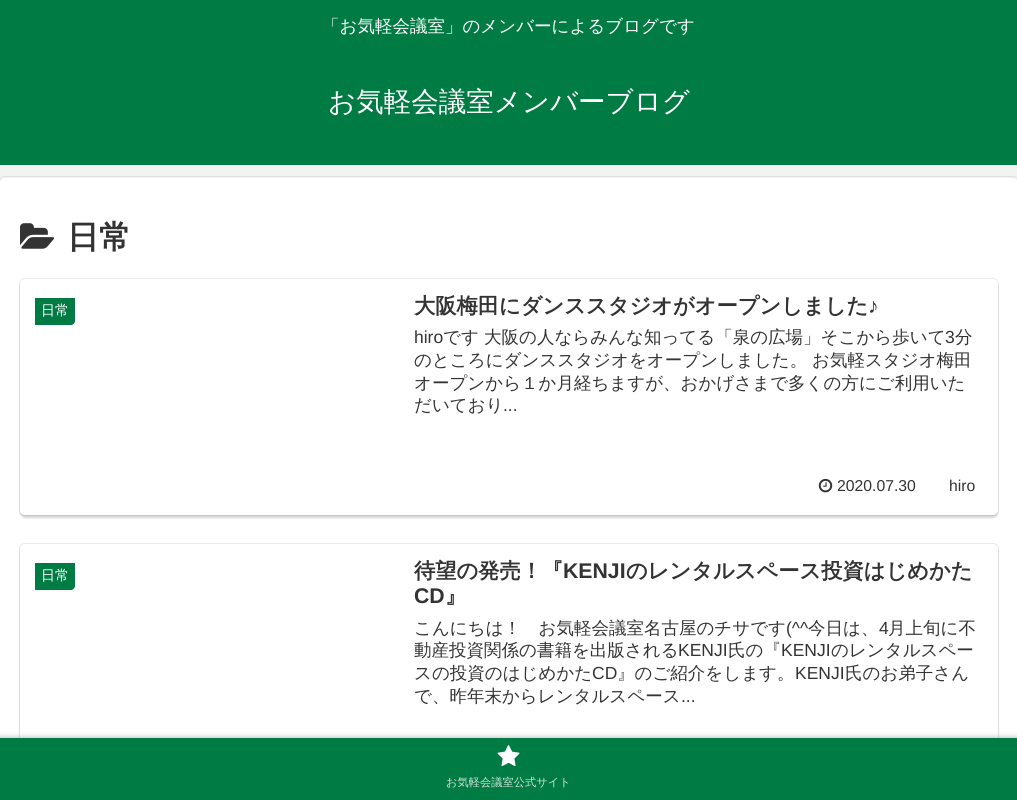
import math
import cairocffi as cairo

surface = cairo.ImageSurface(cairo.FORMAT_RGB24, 1017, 800)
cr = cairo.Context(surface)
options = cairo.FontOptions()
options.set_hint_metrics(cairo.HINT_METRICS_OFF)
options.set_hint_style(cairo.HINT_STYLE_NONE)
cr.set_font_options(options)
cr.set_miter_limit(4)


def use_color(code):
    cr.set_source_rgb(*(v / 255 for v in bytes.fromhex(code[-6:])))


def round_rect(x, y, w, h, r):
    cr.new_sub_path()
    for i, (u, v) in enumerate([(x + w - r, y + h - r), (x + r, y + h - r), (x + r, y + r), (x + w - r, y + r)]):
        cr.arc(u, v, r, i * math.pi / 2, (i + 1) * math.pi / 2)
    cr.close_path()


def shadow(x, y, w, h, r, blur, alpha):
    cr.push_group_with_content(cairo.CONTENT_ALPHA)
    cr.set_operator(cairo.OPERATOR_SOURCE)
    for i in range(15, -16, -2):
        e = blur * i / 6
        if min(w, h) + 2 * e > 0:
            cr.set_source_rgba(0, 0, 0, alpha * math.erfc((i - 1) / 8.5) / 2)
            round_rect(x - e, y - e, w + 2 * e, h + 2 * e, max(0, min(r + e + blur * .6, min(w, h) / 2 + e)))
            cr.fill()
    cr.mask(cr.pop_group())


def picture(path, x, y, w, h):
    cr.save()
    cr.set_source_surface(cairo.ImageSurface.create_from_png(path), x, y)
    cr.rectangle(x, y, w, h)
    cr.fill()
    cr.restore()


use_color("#f3f3f2")
cr.paint()
use_color("#007b43")
cr.rectangle(0, 0, 1017, 165)
cr.fill()
cr.select_font_face("WenQuanYi Zen Hei Medium")
cr.set_font_size(17.5)
use_color("#ffffff")
cr.move_to(322, 32)
cr.show_text("「お気軽会議室」のメンバーによるブログです")
cr.set_font_size(27.5)
cr.move_to(328, 111)
cr.show_text("お気軽会議室メンバーブログ")
round_rect(-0.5, 176.5, 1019, 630, 5.5)
use_color("#e0e0df")
cr.set_line_width(1)
cr.stroke()
use_color("#ffffff")
round_rect(0, 178, 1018, 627, 5)
cr.fill()
picture("img1.png", 20, 223, 35, 26)
cr.select_font_face("WenQuanYi Zen Hei", cairo.FONT_SLANT_NORMAL, cairo.FONT_WEIGHT_BOLD)
cr.set_font_size(32)
use_color("#333333")
cr.move_to(67, 248)
cr.show_text("日常")
round_rect(19.5, 278.5, 979, 237, 5.5)
use_color("#ebebeb")
cr.stroke()
cr.save()
cr.set_fill_rule(cairo.FILL_RULE_EVEN_ODD)
cr.new_path()
cr.move_to(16, 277)
cr.line_to(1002, 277)
cr.line_to(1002, 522)
cr.line_to(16, 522)
cr.close_path()
cr.move_to(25, 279)
cr.line_to(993, 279)
cr.curve_to(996, 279, 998, 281, 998, 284)
cr.line_to(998, 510)
cr.curve_to(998, 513, 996, 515, 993, 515)
cr.line_to(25, 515)
cr.curve_to(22, 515, 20, 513, 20, 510)
cr.line_to(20, 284)
cr.curve_to(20, 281, 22, 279, 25, 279)
cr.close_path()
cr.clip()
use_color("#000000")
shadow(20, 281, 978, 237, 5, 1, 0.16)
cr.restore()
use_color("#007b43")
cr.new_path()
cr.move_to(35, 298)
cr.line_to(75, 298)
cr.line_to(75, 321)
cr.curve_to(75, 323, 73, 325, 71, 325)
cr.line_to(35, 325)
cr.close_path()
cr.fill()
cr.select_font_face("WenQuanYi Zen Hei Medium")
cr.set_font_size(14)
use_color("#ffffff")
cr.move_to(41, 315)
cr.show_text("日常")
cr.select_font_face("WenQuanYi Zen Hei", cairo.FONT_SLANT_NORMAL, cairo.FONT_WEIGHT_BOLD)
cr.set_font_size(21.25)
use_color("#333333")
cr.move_to(414, 313)
cr.show_text("大阪梅田にダンススタジオがオープンしました")
cr.select_font_face("Liberation Sans", cairo.FONT_SLANT_NORMAL, cairo.FONT_WEIGHT_BOLD)
cr.move_to(868, 313)
cr.show_text("♪")
cr.select_font_face("Liberation Sans")
cr.set_font_size(17.5)
cr.move_to(414, 343)
cr.show_text("hiro")
cr.select_font_face("WenQuanYi Zen Hei Medium")
cr.move_to(443, 343)
cr.show_text("です")
cr.move_to(484, 343)
cr.show_text("大阪の人ならみんな知ってる「泉の広場」そこから歩いて")
cr.select_font_face("Liberation Sans")
cr.move_to(945, 343)
cr.show_text("3")
cr.select_font_face("WenQuanYi Zen Hei Medium")
cr.move_to(955, 343)
cr.show_text("分")
cr.move_to(414, 366)
cr.show_text("のところにダンススタジオをオープンしました。")
cr.move_to(812, 366)
cr.show_text("お気軽スタジオ梅田")
cr.move_to(414, 389)
cr.show_text("オープンから１か月経ちますが、おかげさまで多くの方にご利用いた")
cr.move_to(414, 411)
cr.show_text("だいており")
cr.select_font_face("Liberation Sans")
cr.move_to(503, 411)
cr.show_text("...")
picture("img2.png", 818, 478, 15, 15)
cr.set_font_size(15.75)
cr.move_to(837, 491)
cr.show_text("2020.07.30")
cr.move_to(949, 491)
cr.show_text("hiro")
round_rect(19.5, 543.5, 979, 237, 5.5)
use_color("#ebebeb")
cr.stroke()
cr.save()
cr.set_fill_rule(cairo.FILL_RULE_EVEN_ODD)
cr.new_path()
cr.move_to(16, 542)
cr.line_to(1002, 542)
cr.line_to(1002, 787)
cr.line_to(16, 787)
cr.close_path()
cr.move_to(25, 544)
cr.line_to(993, 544)
cr.curve_to(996, 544, 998, 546, 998, 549)
cr.line_to(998, 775)
cr.curve_to(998, 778, 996, 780, 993, 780)
cr.line_to(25, 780)
cr.curve_to(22, 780, 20, 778, 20, 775)
cr.line_to(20, 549)
cr.curve_to(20, 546, 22, 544, 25, 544)
cr.close_path()
cr.clip()
use_color("#000000")
shadow(20, 546, 978, 237, 5, 1, 0.16)
cr.restore()
use_color("#007b43")
cr.new_path()
cr.move_to(35, 563)
cr.line_to(75, 563)
cr.line_to(75, 586)
cr.curve_to(75, 588, 73, 590, 71, 590)
cr.line_to(35, 590)
cr.close_path()
cr.fill()
cr.select_font_face("WenQuanYi Zen Hei Medium")
cr.set_font_size(14)
use_color("#ffffff")
cr.move_to(41, 580)
cr.show_text("日常")
cr.select_font_face("WenQuanYi Zen Hei", cairo.FONT_SLANT_NORMAL, cairo.FONT_WEIGHT_BOLD)
cr.set_font_size(21.25)
use_color("#333333")
cr.move_to(414, 578)
cr.show_text("待望の発売！『")
cr.select_font_face("Liberation Sans", cairo.FONT_SLANT_NORMAL, cairo.FONT_WEIGHT_BOLD)
cr.move_to(563, 578)
cr.show_text("KENJI")
cr.select_font_face("WenQuanYi Zen Hei", cairo.FONT_SLANT_NORMAL, cairo.FONT_WEIGHT_BOLD)
cr.move_to(626, 578)
cr.show_text("のレンタルスペース投資はじめかた")
cr.select_font_face("Liberation Sans", cairo.FONT_SLANT_NORMAL, cairo.FONT_WEIGHT_BOLD)
cr.move_to(414, 603)
cr.show_text("CD")
cr.select_font_face("WenQuanYi Zen Hei", cairo.FONT_SLANT_NORMAL, cairo.FONT_WEIGHT_BOLD)
cr.move_to(445, 603)
cr.show_text("』")
cr.select_font_face("WenQuanYi Zen Hei Medium")
cr.set_font_size(17.5)
cr.move_to(414, 634)
cr.show_text("こんにちは！　お気軽会議室名古屋のチサです")
cr.select_font_face("Liberation Sans")
cr.move_to(786, 634)
cr.show_text("(^^")
cr.select_font_face("WenQuanYi Zen Hei Medium")
cr.move_to(808, 634)
cr.show_text("今日は、")
cr.select_font_face("Liberation Sans")
cr.move_to(879, 634)
cr.show_text("4")
cr.select_font_face("WenQuanYi Zen Hei Medium")
cr.move_to(888, 634)
cr.show_text("月上旬に不")
cr.move_to(414, 656)
cr.show_text("動産投資関係の書籍を出版される")
cr.select_font_face("Liberation Sans")
cr.move_to(678, 656)
cr.show_text("KENJI")
cr.select_font_face("WenQuanYi Zen Hei Medium")
cr.move_to(728, 656)
cr.show_text("氏の『")
cr.select_font_face("Liberation Sans")
cr.move_to(781, 656)
cr.show_text("KENJI")
cr.select_font_face("WenQuanYi Zen Hei Medium")
cr.move_to(831, 656)
cr.show_text("のレンタルスペー")
cr.move_to(414, 679)
cr.show_text("スの投資のはじめかた")
cr.select_font_face("Liberation Sans")
cr.move_to(592, 679)
cr.show_text("CD")
cr.select_font_face("WenQuanYi Zen Hei Medium")
cr.move_to(617, 679)
cr.show_text("』のご紹介をします。")
cr.select_font_face("Liberation Sans")
cr.move_to(795, 679)
cr.show_text("KENJI")
cr.select_font_face("WenQuanYi Zen Hei Medium")
cr.move_to(845, 679)
cr.show_text("氏のお弟子さん")
cr.move_to(414, 702)
cr.show_text("で、昨年末からレンタルスペース")
cr.select_font_face("Liberation Sans")
cr.move_to(681, 702)
cr.show_text("...")
use_color("#a9a9a9")
shadow(0, 738, 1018, 62, 0, 3, 1)
use_color("#007b43")
cr.rectangle(0, 738, 1017, 62)
cr.fill()
picture("img3.png", 497, 745, 23, 21)
cr.select_font_face("WenQuanYi Zen Hei Medium")
cr.set_font_size(11.25)
use_color("#cce5d9")
cr.move_to(446, 786)
cr.show_text("お気軽会議室公式サイト")
surface.write_to_png("result.png")
